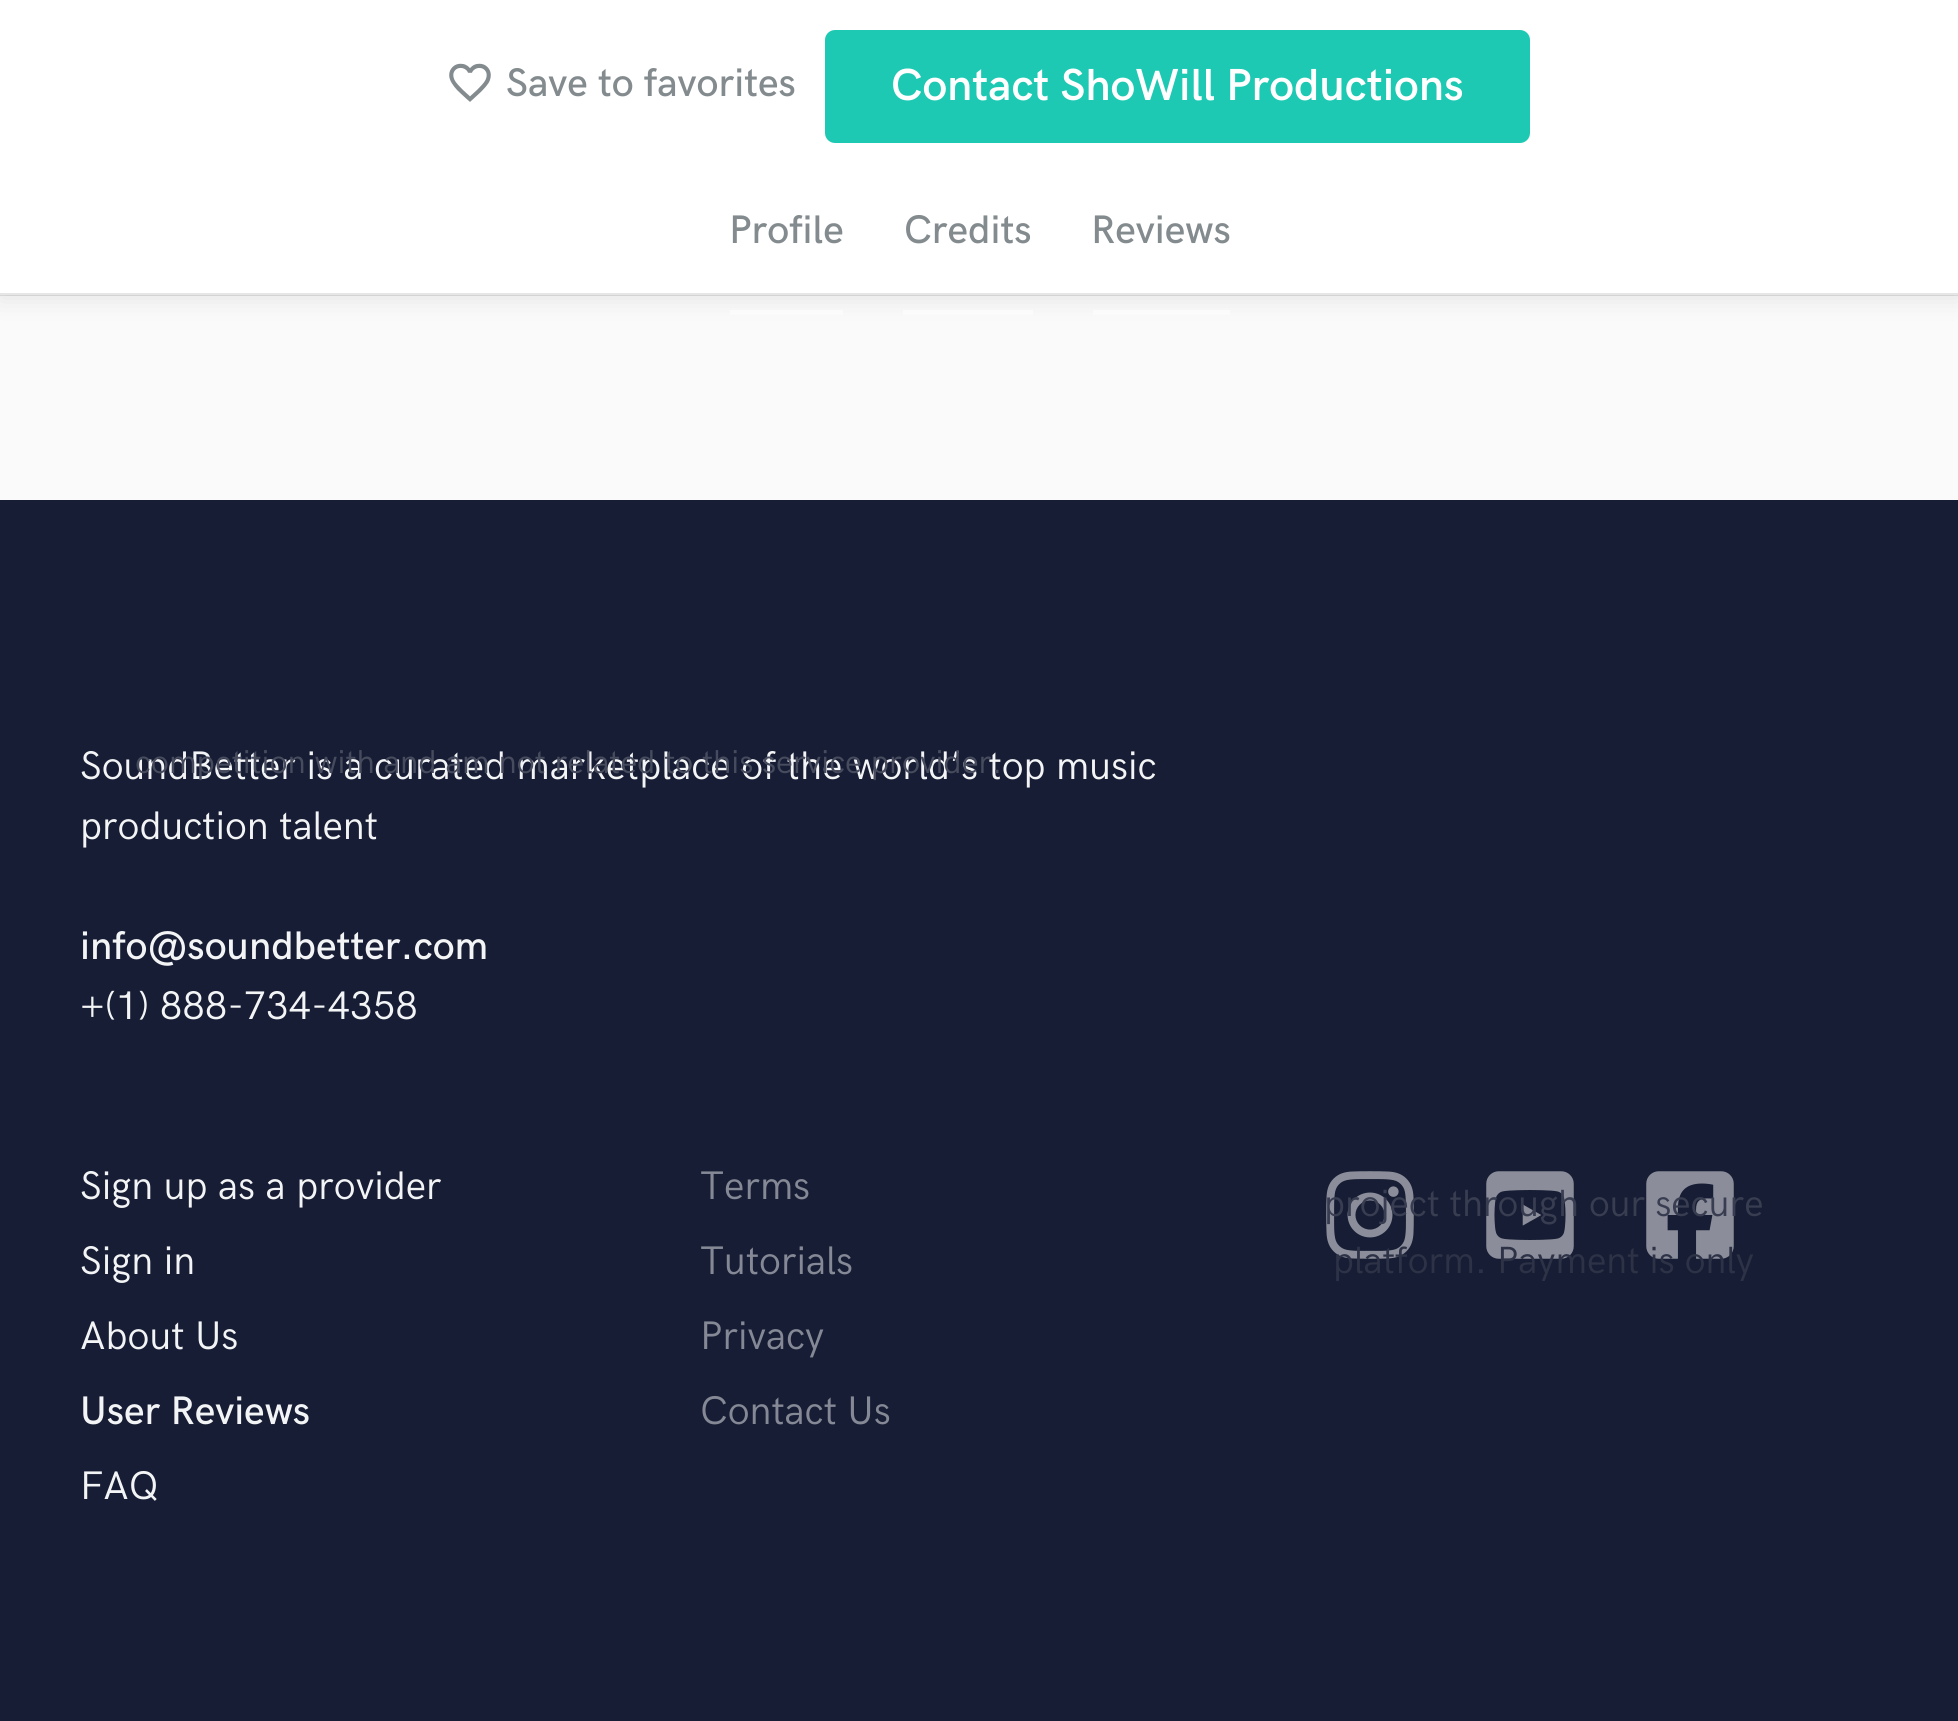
import math
import cairocffi as cairo

surface = cairo.ImageSurface(cairo.FORMAT_RGB24, 1958, 1721)
cr = cairo.Context(surface)
options = cairo.FontOptions()
options.set_hint_metrics(cairo.HINT_METRICS_OFF)
options.set_hint_style(cairo.HINT_STYLE_NONE)
cr.set_font_options(options)
cr.set_miter_limit(4)


def use_color(code):
    cr.set_source_rgb(*(v / 255 for v in bytes.fromhex(code[-6:])))


def round_rect(x, y, w, h, r):
    cr.new_sub_path()
    for i, (u, v) in enumerate([(x + w - r, y + h - r), (x + r, y + h - r), (x + r, y + r), (x + w - r, y + r)]):
        cr.arc(u, v, r, i * math.pi / 2, (i + 1) * math.pi / 2)
    cr.close_path()


def shadow(x, y, w, h, r, blur, alpha):
    cr.push_group_with_content(cairo.CONTENT_ALPHA)
    cr.set_operator(cairo.OPERATOR_SOURCE)
    for i in range(15, -16, -2):
        e = blur * i / 6
        if min(w, h) + 2 * e > 0:
            cr.set_source_rgba(0, 0, 0, alpha * math.erfc((i - 1) / 8.5) / 2)
            round_rect(x - e, y - e, w + 2 * e, h + 2 * e, max(0, min(r + e + blur * .6, min(w, h) / 2 + e)))
            cr.fill()
    cr.mask(cr.pop_group())


def picture(path, x, y, w, h):
    cr.save()
    cr.set_source_surface(cairo.ImageSurface.create_from_png(path), x, y)
    cr.rectangle(x, y, w, h)
    cr.fill()
    cr.restore()


use_color("#171d34")
cr.paint()
use_color("#fafafa")
cr.rectangle(0, 295, 1958, 205)
cr.fill()
use_color("#000000")
shadow(0, 3, 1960, 295, 0, 12.5, 0.1)
use_color("#ffffff")
cr.rectangle(0, 0, 1958, 295)
cr.fill()
cr.set_source_rgba(0, 0, 0, 0.1)
cr.rectangle(0, 293, 1958, 3)
cr.fill()
picture("img1.png", 449, 63, 42, 39)
cr.select_font_face("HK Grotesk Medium")
cr.set_font_size(40)
use_color("#838b8e")
cr.move_to(506, 96)
cr.show_text("Save to favorites")
use_color("#1ec9b4")
round_rect(827.5, 32.5, 700, 108, 7.5)
cr.fill_preserve()
cr.set_line_width(5)
cr.stroke()
cr.select_font_face("HK Grotesk SemiBold")
cr.set_font_size(45)
use_color("#ffffff")
cr.move_to(891, 100)
cr.show_text("Contact ShoWill Productions")
cr.select_font_face("HK Grotesk Medium")
cr.set_font_size(40)
use_color("#838b8e")
cr.move_to(729, 243)
cr.show_text("Profile")
use_color("#fbfbfb")
cr.rectangle(730, 310, 113, 5)
cr.fill()
use_color("#838b8e")
cr.move_to(904, 243)
cr.show_text("Credits")
use_color("#fbfbfb")
cr.rectangle(903, 310, 130, 5)
cr.fill()
use_color("#838b8e")
cr.move_to(1091, 243)
cr.show_text("Reviews")
use_color("#fbfbfb")
cr.rectangle(1093, 310, 137, 5)
cr.fill()
cr.select_font_face("HK Grotesk")
use_color("#f3f4f5")
cr.move_to(80, 779)
cr.show_text("SoundBetter is a curated marketplace of the world’s top music")
cr.set_font_size(33.25)
use_color("#464b5d")
cr.move_to(135, 773)
cr.show_text("competition with and am not related to this service provider.")
cr.set_font_size(40)
use_color("#f3f4f5")
cr.move_to(80, 839)
cr.show_text("production talent")
cr.select_font_face("HK Grotesk Medium")
cr.move_to(80, 959)
cr.show_text("info@soundbetter.com")
cr.select_font_face("HK Grotesk")
cr.move_to(80, 1019)
cr.show_text("+(1) 888-734-4358")
cr.move_to(80, 1199)
cr.show_text("Sign up as a provider")
cr.move_to(80, 1274)
cr.show_text("Sign in")
cr.move_to(80, 1349)
cr.show_text("About Us")
cr.select_font_face("HK Grotesk Medium")
cr.move_to(80, 1424)
cr.show_text("User Reviews")
cr.select_font_face("HK Grotesk")
cr.move_to(80, 1499)
cr.show_text("FAQ")
use_color("#858895")
cr.move_to(700, 1199)
cr.show_text("Terms")
cr.move_to(700, 1274)
cr.show_text("Tutorials")
cr.move_to(700, 1349)
cr.show_text("Privacy")
cr.move_to(700, 1424)
cr.show_text("Contact Us")
picture("img2.png", 1326, 1171, 88, 88)
picture("img3.png", 1486, 1171, 88, 88)
picture("img4.png", 1646, 1171, 88, 88)
cr.set_font_size(38)
use_color("#383d51")
cr.move_to(1324, 1216)
cr.show_text("project through our secure")
use_color("#2d3247")
cr.move_to(1333, 1273)
cr.show_text("platform. Payment is only")
surface.write_to_png("result.png")
